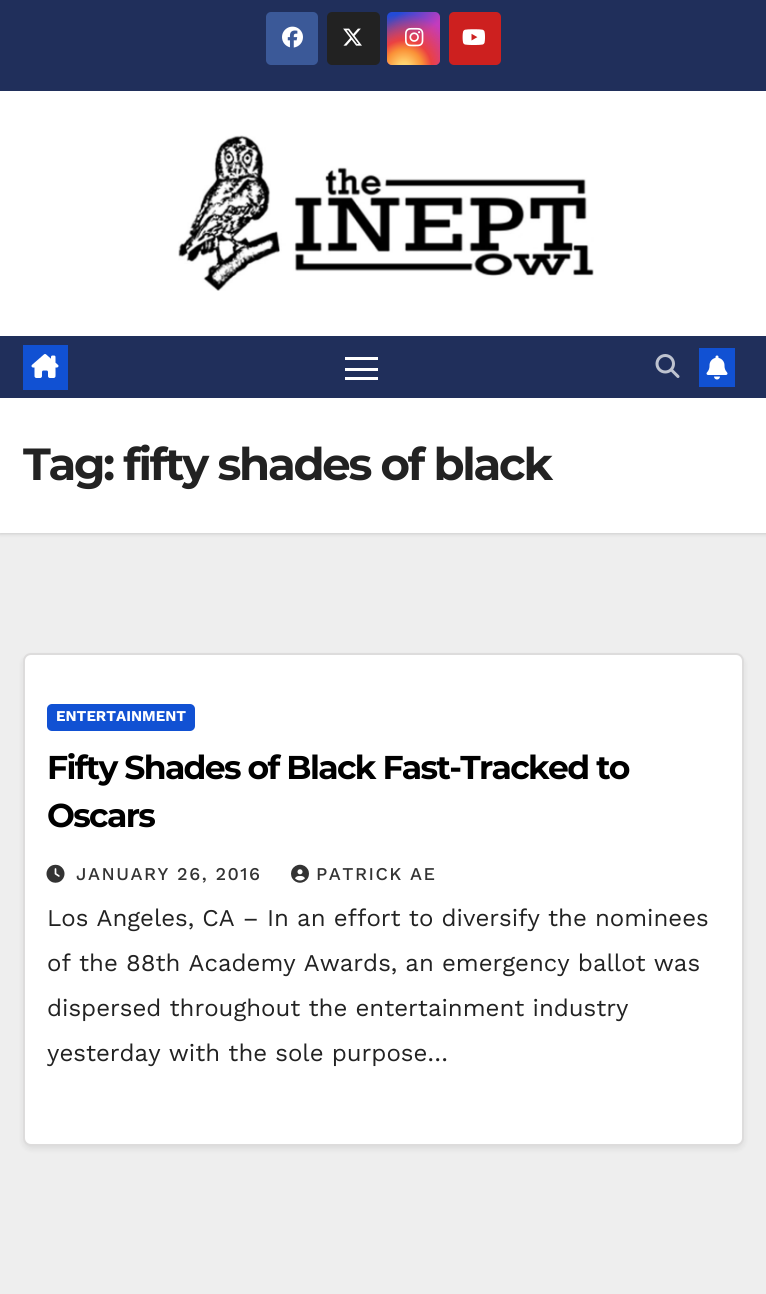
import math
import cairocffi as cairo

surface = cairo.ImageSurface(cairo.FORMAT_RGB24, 766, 1294)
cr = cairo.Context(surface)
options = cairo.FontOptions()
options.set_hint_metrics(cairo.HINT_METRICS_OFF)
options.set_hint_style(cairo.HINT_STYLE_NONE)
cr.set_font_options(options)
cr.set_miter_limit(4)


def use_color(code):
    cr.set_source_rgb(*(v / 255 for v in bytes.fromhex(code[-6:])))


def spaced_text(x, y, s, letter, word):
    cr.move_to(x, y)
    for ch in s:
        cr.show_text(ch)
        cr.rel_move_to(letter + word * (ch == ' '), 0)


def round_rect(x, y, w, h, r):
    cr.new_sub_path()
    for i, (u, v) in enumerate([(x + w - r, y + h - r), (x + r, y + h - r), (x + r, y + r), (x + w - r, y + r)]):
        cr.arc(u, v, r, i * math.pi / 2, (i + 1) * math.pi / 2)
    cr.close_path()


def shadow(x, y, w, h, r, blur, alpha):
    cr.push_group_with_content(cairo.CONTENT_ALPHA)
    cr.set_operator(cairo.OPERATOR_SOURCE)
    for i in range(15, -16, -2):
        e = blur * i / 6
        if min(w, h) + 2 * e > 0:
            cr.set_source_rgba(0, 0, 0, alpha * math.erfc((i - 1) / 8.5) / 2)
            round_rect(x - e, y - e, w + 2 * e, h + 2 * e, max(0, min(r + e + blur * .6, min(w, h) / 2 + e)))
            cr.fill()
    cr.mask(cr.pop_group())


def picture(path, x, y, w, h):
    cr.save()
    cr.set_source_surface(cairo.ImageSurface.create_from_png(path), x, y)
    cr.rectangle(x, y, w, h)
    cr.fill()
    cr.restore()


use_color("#eeeeee")
cr.paint()
use_color("#202f5b")
cr.rectangle(0, 0, 766, 91)
cr.fill()
use_color("#3b5998")
round_rect(266, 12, 52, 53, 5)
cr.fill()
picture("img1.png", 282, 26, 21, 22)
use_color("#222222")
round_rect(327, 12, 53, 53, 5)
cr.fill()
picture("img2.png", 343, 28, 19, 18)
gradient = cairo.LinearGradient(387, 12, 440, 65)
gradient.add_color_stop_rgba(0.12, 0.137, 0.294, 0.843, 1)
gradient.add_color_stop_rgba(0.58, 0.765, 0.235, 0.745, 1)
cr.set_source(gradient)
round_rect(387, 12, 53, 53, 5)
cr.fill()
gradient = cairo.RadialGradient(404, 68, 0, 404, 68, 66)
gradient.add_color_stop_rgba(0, 1, 0.882, 0.49, 1)
gradient.add_color_stop_rgba(0.1, 1, 0.804, 0.412, 1)
gradient.add_color_stop_rgba(0.28, 0.98, 0.569, 0.216, 1)
gradient.add_color_stop_rgba(0.42, 0.922, 0.255, 0.255, 1)
gradient.add_color_stop_rgba(0.82, 0.922, 0.255, 0.255, 0)
cr.set_source(gradient)
round_rect(387, 12, 53, 53, 5)
cr.fill()
picture("img3.png", 405, 27, 19, 20)
use_color("#cd201f")
round_rect(449, 12, 52, 53, 5)
cr.fill()
picture("img4.png", 462, 29, 23, 16)
use_color("#ffffff")
cr.rectangle(0, 91, 766, 245)
cr.fill()
picture("img5.png", 178, 135, 416, 156)
use_color("#000000")
shadow(0, 399, 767, 135, 0, 2, 0.15)
use_color("#202f5b")
cr.rectangle(0, 336, 766, 62)
cr.fill()
use_color("#1151d3")
cr.rectangle(23, 345, 45, 45)
cr.fill()
picture("img6.png", 31, 354, 28, 24)
use_color("#ffffff")
cr.rectangle(345, 357, 33, 3)
cr.fill()
cr.rectangle(345, 368, 33, 3)
cr.fill()
cr.rectangle(345, 377, 33, 3)
cr.fill()
picture("img7.png", 655, 354, 25, 24)
use_color("#1151d3")
cr.rectangle(699, 348, 36, 39)
cr.fill()
picture("img8.png", 706, 355, 22, 25)
use_color("#ffffff")
cr.rectangle(0, 398, 766, 135)
cr.fill()
cr.select_font_face("Montserrat", cairo.FONT_SLANT_NORMAL, cairo.FONT_WEIGHT_BOLD)
cr.set_font_size(45)
use_color("#222222")
spaced_text(23, 480, "Tag: fifty shades of black", -2.25, 0)
use_color("#000000")
shadow(23, 656, 721, 493, 8, 3, 0.08)
use_color("#ffffff")
round_rect(24, 654, 719, 491, 7)
cr.fill_preserve()
use_color("#dddcdc")
cr.stroke()
use_color("#1151d3")
round_rect(47, 704, 148, 27, 5)
cr.fill()
cr.select_font_face("Work Sans", cairo.FONT_SLANT_NORMAL, cairo.FONT_WEIGHT_BOLD)
cr.set_font_size(15)
use_color("#ffffff")
cr.move_to(56, 721)
cr.show_text("ENTERTAINMENT")
cr.select_font_face("Montserrat", cairo.FONT_SLANT_NORMAL, cairo.FONT_WEIGHT_BOLD)
cr.set_font_size(33)
use_color("#000000")
spaced_text(47, 779, "Fifty Shades of Black Fast-Tracked to", -1.65, 0)
spaced_text(47, 827, "Oscars", -1.65, 0)
picture("img9.png", 46, 864, 19, 19)
cr.select_font_face("Work Sans Medium")
cr.set_font_size(18)
use_color("#333333")
spaced_text(76, 880, "JANUARY 26, 2016", 1.5, 0)
picture("img10.png", 291, 864, 18, 19)
spaced_text(316, 880, "PATRICK AE", 1.5, 0)
cr.select_font_face("Work Sans")
cr.set_font_size(24)
use_color("#222222")
cr.move_to(47, 926)
cr.show_text("Los Angeles, CA – In an effort to diversify the nominees")
cr.move_to(47, 971)
cr.show_text("of the 88th Academy Awards, an emergency ballot was")
cr.move_to(47, 1016)
cr.show_text("dispersed throughout the entertainment industry")
cr.move_to(47, 1061)
cr.show_text("yesterday with the sole purpose…")
surface.write_to_png("result.png")
